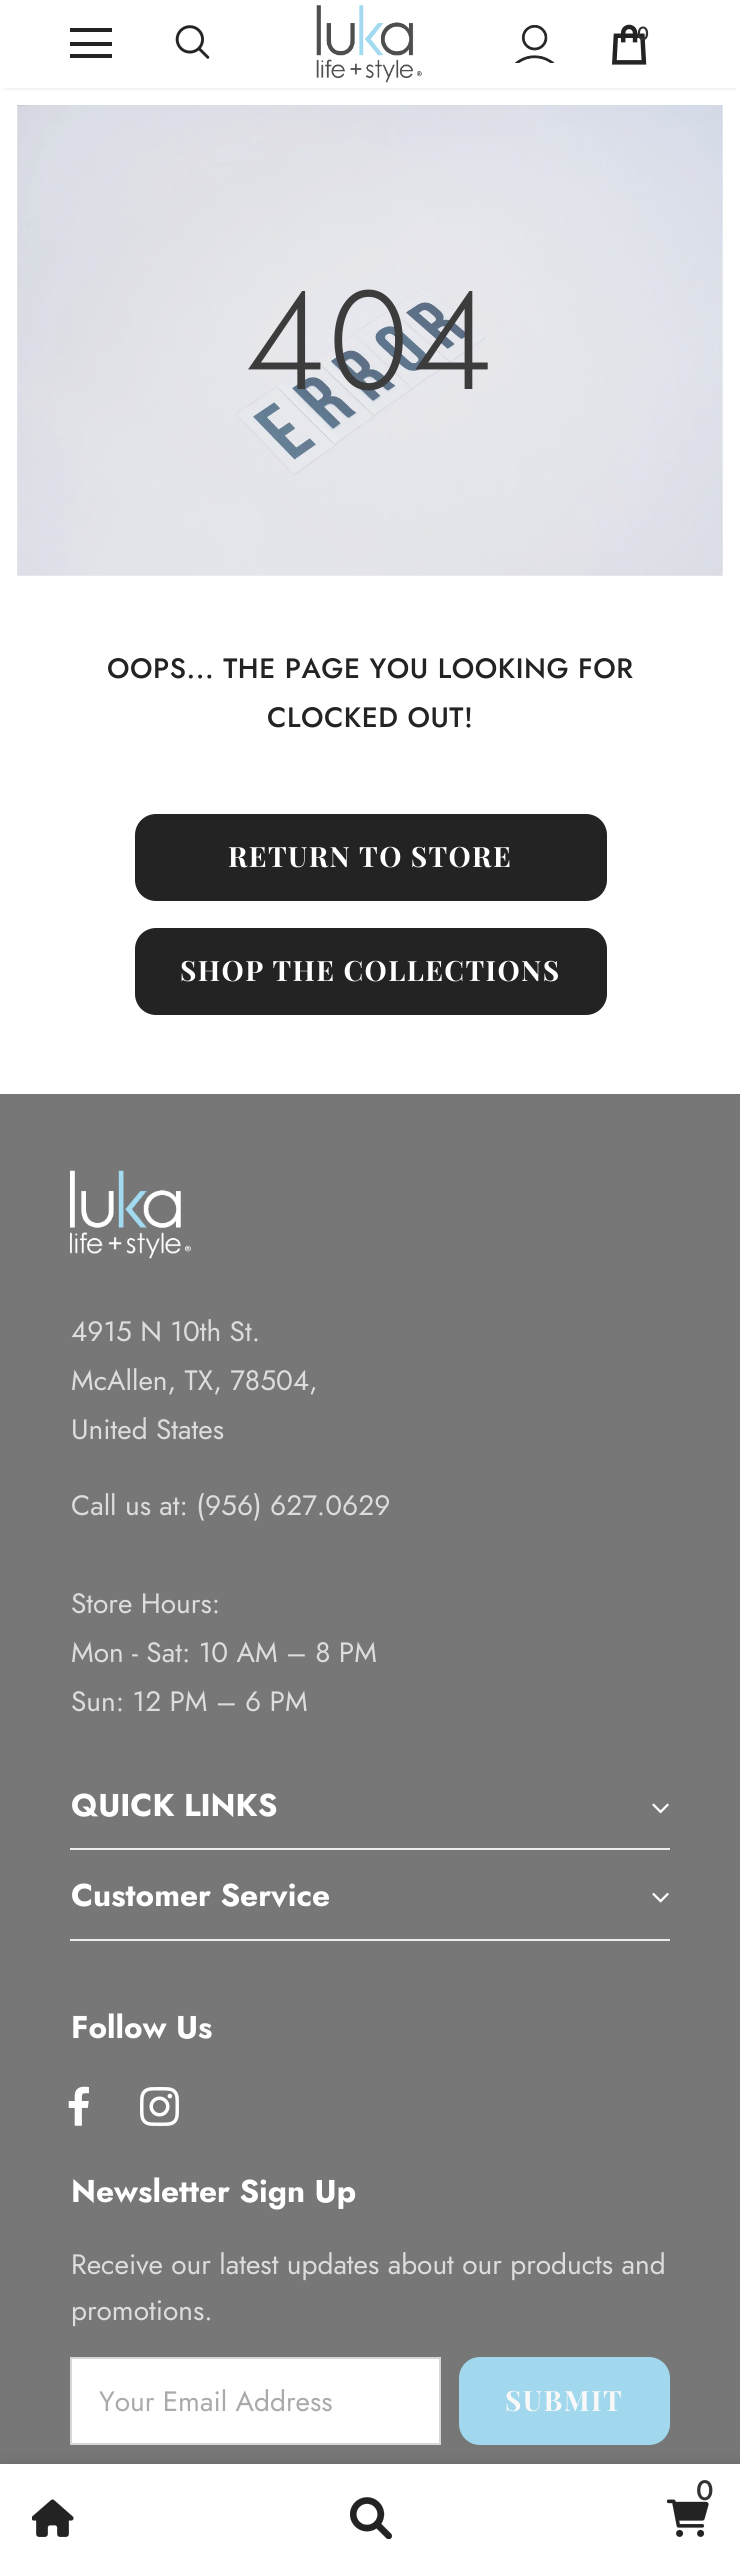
import math
import cairocffi as cairo

surface = cairo.ImageSurface(cairo.FORMAT_RGB24, 740, 2571)
cr = cairo.Context(surface)
options = cairo.FontOptions()
options.set_hint_metrics(cairo.HINT_METRICS_OFF)
options.set_hint_style(cairo.HINT_STYLE_NONE)
cr.set_font_options(options)
cr.set_miter_limit(4)


def use_color(code):
    cr.set_source_rgb(*(v / 255 for v in bytes.fromhex(code[-6:])))


def spaced_text(x, y, s, letter, word):
    cr.move_to(x, y)
    for ch in s:
        cr.show_text(ch)
        cr.rel_move_to(letter + word * (ch == ' '), 0)


def round_rect(x, y, w, h, r):
    cr.new_sub_path()
    for i, (u, v) in enumerate([(x + w - r, y + h - r), (x + r, y + h - r), (x + r, y + r), (x + w - r, y + r)]):
        cr.arc(u, v, r, i * math.pi / 2, (i + 1) * math.pi / 2)
    cr.close_path()


def shadow(x, y, w, h, r, blur, alpha):
    cr.push_group_with_content(cairo.CONTENT_ALPHA)
    cr.set_operator(cairo.OPERATOR_SOURCE)
    for i in range(15, -16, -2):
        e = blur * i / 6
        if min(w, h) + 2 * e > 0:
            cr.set_source_rgba(0, 0, 0, alpha * math.erfc((i - 1) / 8.5) / 2)
            round_rect(x - e, y - e, w + 2 * e, h + 2 * e, max(0, min(r + e + blur * .6, min(w, h) / 2 + e)))
            cr.fill()
    cr.mask(cr.pop_group())


def picture(path, x, y, w, h):
    cr.save()
    cr.set_source_surface(cairo.ImageSurface.create_from_png(path), x, y)
    cr.rectangle(x, y, w, h)
    cr.fill()
    cr.restore()


use_color("#ffffff")
cr.paint()
use_color("#000000")
shadow(5, 11, 730, 77, 0, 2.5, 0.12)
use_color("#ffffff")
cr.rectangle(2, 8, 736, 80)
cr.fill()
use_color("#232323")
cr.rectangle(70, 28, 42, 4)
cr.fill()
cr.rectangle(70, 42, 42, 4)
cr.fill()
cr.rectangle(70, 54, 42, 4)
cr.fill()
picture("img1.png", 175, 25, 35, 34)
picture("img2.png", 316, 5, 106, 78)
picture("img3.png", 514, 25, 41, 38)
picture("img4.png", 612, 24, 35, 41)
cr.select_font_face("Jost Medium")
cr.set_font_size(19)
use_color("#323232")
cr.move_to(637, 40)
cr.show_text("0")
picture("img5.png", 17, 105, 706, 471)
cr.select_font_face("Jost Light")
cr.set_font_size(140)
use_color("#3c3c3c")
spaced_text(245, 389, "404", 3, 0)
cr.select_font_face("Jost Medium")
cr.set_font_size(28)
use_color("#232323")
spaced_text(107, 678, "OOPS... THE PAGE YOU LOOKING FOR", 0.55, 0)
spaced_text(267, 727, "CLOCKED OUT!", 0.55, 0)
round_rect(136, 815, 470, 85, 20)
cr.fill_preserve()
cr.stroke()
cr.select_font_face("Playfair Display", cairo.FONT_SLANT_NORMAL, cairo.FONT_WEIGHT_BOLD)
use_color("#ffffff")
spaced_text(228, 867, "RETURN TO STORE", 1.4, 0)
use_color("#232323")
round_rect(136, 929, 470, 85, 20)
cr.fill_preserve()
cr.stroke()
use_color("#ffffff")
spaced_text(180, 981, "SHOP THE COLLECTIONS", 1.4, 0)
use_color("#777777")
cr.rectangle(0, 1094, 740, 1370)
cr.fill()
picture("img6.png", 70, 1170, 121, 89)
cr.select_font_face("Jost")
use_color("#dddddd")
cr.move_to(71, 1341)
cr.show_text("4915 N 10th St.")
cr.move_to(71, 1390)
cr.show_text("McAllen, TX, 78504,")
cr.move_to(71, 1439)
cr.show_text("United States")
cr.move_to(71, 1515)
cr.show_text("Call us at: (956) 627.0629")
cr.move_to(71, 1613)
cr.show_text("Store Hours:")
cr.move_to(71, 1662)
cr.show_text("Mon - Sat: 10 AM – 8 PM")
cr.move_to(71, 1711)
cr.show_text("Sun: 12 PM – 6 PM")
use_color("#ebebeb")
cr.rectangle(70, 1848, 600, 2)
cr.fill()
cr.select_font_face("Jost", cairo.FONT_SLANT_NORMAL, cairo.FONT_WEIGHT_BOLD)
cr.set_font_size(31.5)
use_color("#ffffff")
cr.move_to(71, 1816)
cr.show_text("QUICK LINKS")
picture("img7.png", 652, 1803, 17, 11)
use_color("#ebebeb")
cr.rectangle(70, 1939, 600, 2)
cr.fill()
use_color("#ffffff")
cr.move_to(71, 1906)
cr.show_text("Customer Service")
picture("img8.png", 652, 1892, 17, 11)
cr.move_to(71, 2038)
cr.show_text("Follow Us")
picture("img9.png", 68, 2086, 21, 40)
picture("img10.png", 140, 2087, 39, 39)
cr.move_to(71, 2202)
cr.show_text("Newsletter Sign Up")
cr.select_font_face("Jost")
cr.set_font_size(28)
use_color("#dddddd")
cr.move_to(71, 2274)
cr.show_text("Receive our latest updates about our products and")
cr.move_to(71, 2320)
cr.show_text("promotions.")
use_color("#ffffff")
cr.rectangle(71, 2358, 369, 86)
cr.fill_preserve()
use_color("#d7d7d7")
cr.stroke()
use_color("#aaaaaa")
cr.move_to(99, 2411)
cr.show_text("Your Email Address")
use_color("#a1d8ed")
round_rect(460, 2358, 209, 86, 20)
cr.fill_preserve()
cr.stroke()
cr.select_font_face("Playfair Display", cairo.FONT_SLANT_NORMAL, cairo.FONT_WEIGHT_BOLD)
use_color("#f8f8f8")
spaced_text(505, 2411, "SUBMIT", 1.4, 0)
use_color("#000000")
shadow(0, 2464, 740, 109, 0, 8, 0.12)
use_color("#ffffff")
cr.rectangle(0, 2464, 740, 107)
cr.fill()
picture("img11.png", 667, 2499, 42, 38)
cr.select_font_face("Jost Medium")
use_color("#323232")
cr.move_to(696, 2500)
cr.show_text("0")
picture("img12.png", 32, 2499, 42, 38)
picture("img13.png", 350, 2497, 42, 42)
surface.write_to_png("result.png")
